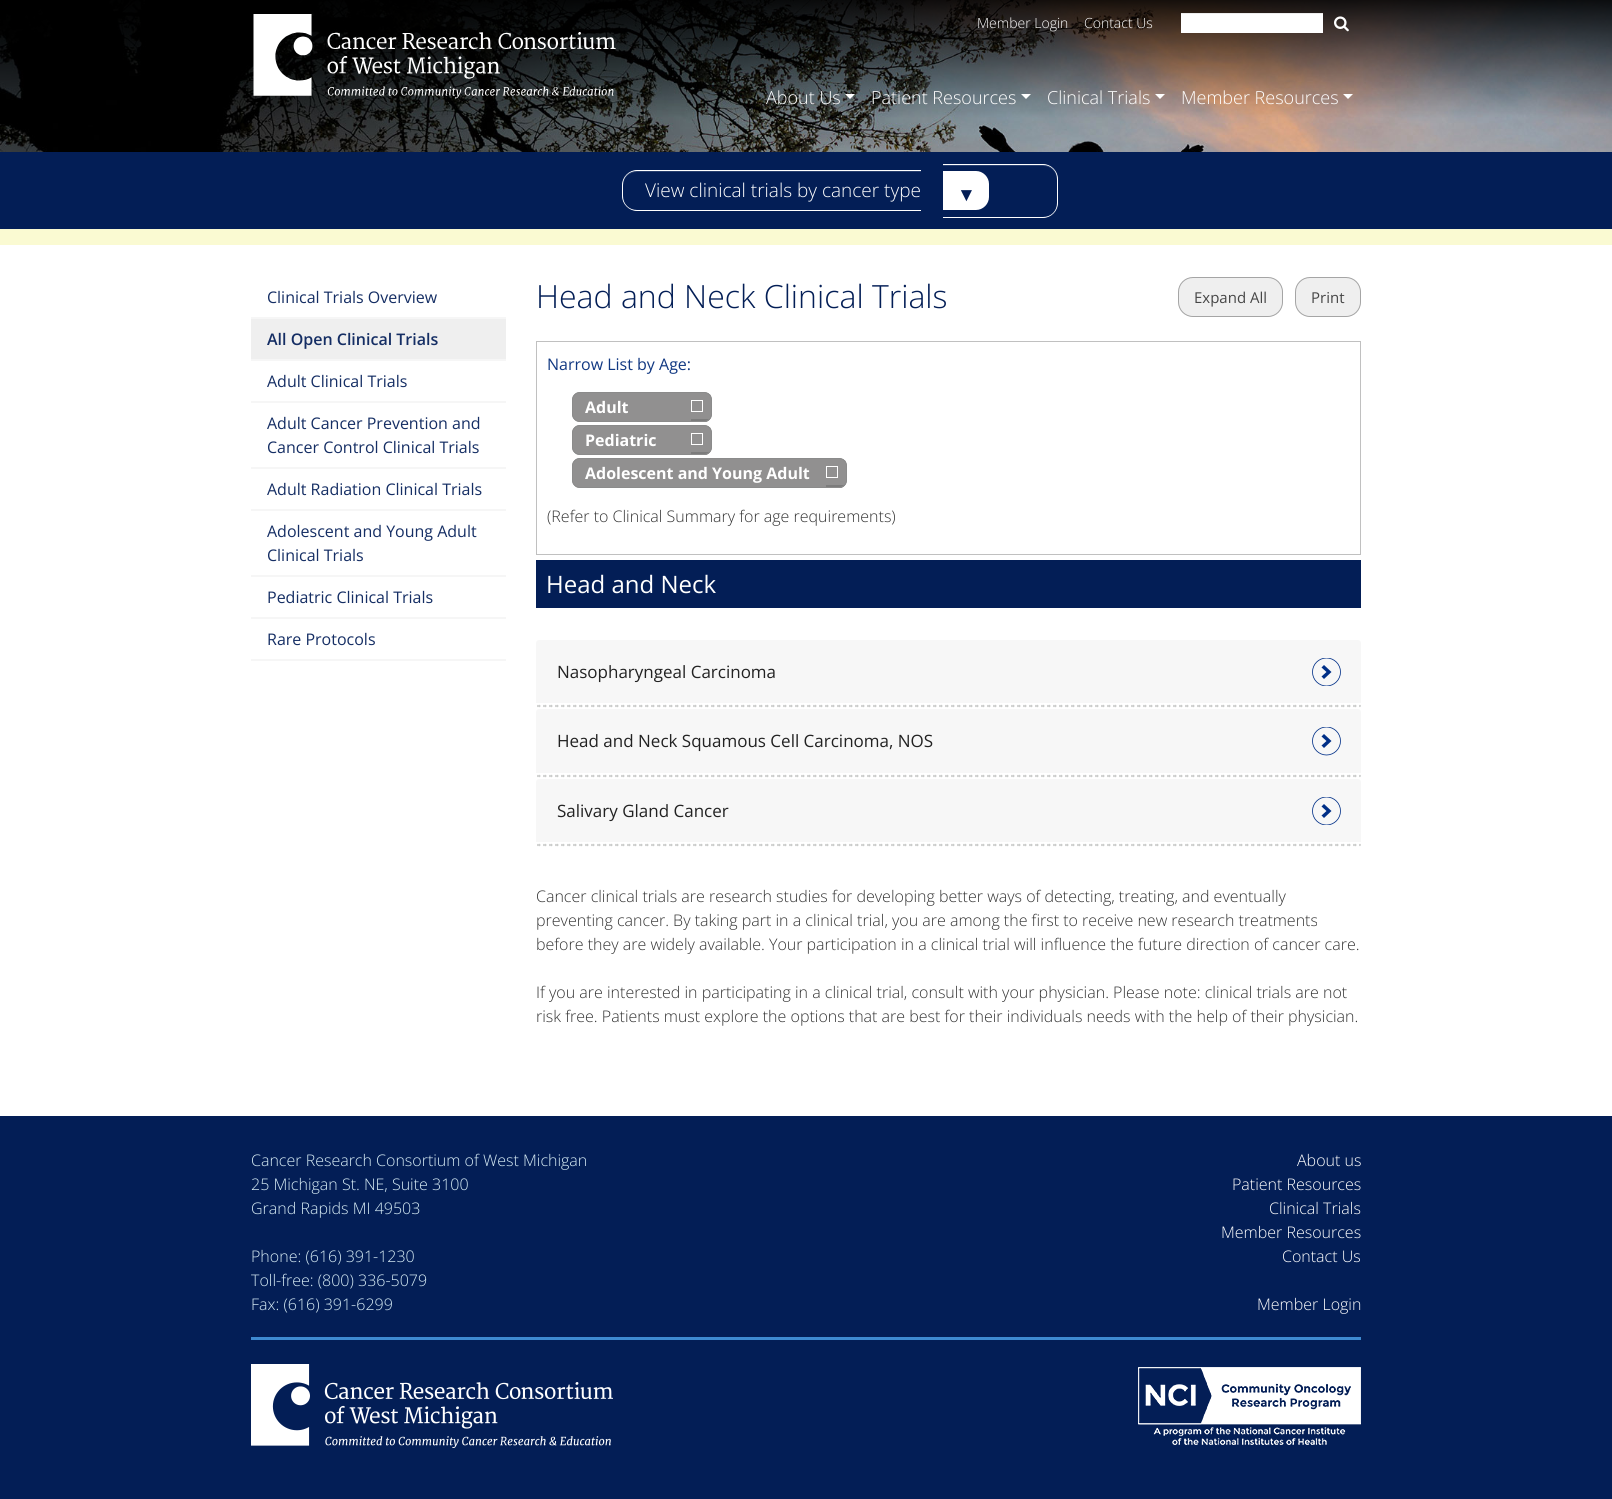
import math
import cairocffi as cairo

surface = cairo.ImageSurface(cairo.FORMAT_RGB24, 1612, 1499)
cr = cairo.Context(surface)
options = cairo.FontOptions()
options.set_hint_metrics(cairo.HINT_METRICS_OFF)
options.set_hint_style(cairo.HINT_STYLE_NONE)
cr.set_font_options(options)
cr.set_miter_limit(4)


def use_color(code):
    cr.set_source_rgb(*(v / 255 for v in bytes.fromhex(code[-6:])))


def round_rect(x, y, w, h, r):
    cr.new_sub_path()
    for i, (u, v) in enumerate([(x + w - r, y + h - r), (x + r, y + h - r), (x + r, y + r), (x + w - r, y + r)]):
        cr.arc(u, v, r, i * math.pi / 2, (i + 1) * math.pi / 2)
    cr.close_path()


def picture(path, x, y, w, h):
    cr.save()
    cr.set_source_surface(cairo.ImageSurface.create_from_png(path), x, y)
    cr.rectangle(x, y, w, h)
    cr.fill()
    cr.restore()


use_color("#ffffff")
cr.paint()
picture("img1.png", 0, 0, 1612, 152)
picture("img2.png", 253, 14, 363, 85)
cr.select_font_face("Open Sans Light")
cr.set_font_size(14)
use_color("#ffffff")
cr.move_to(977, 28)
cr.show_text("Member Login")
cr.move_to(1084, 28)
cr.show_text("Contact Us")
cr.rectangle(1181, 14, 142, 19)
cr.fill()
use_color("#ececec")
cr.rectangle(1181, 13, 142, 1)
cr.fill()
picture("img3.png", 1334, 16, 15, 16)
cr.set_font_size(18)
use_color("#ffffff")
cr.move_to(766, 104)
cr.show_text("About Us")
cr.new_path()
cr.move_to(845, 94)
cr.line_to(855, 94)
cr.line_to(850, 99)
cr.close_path()
cr.fill()
cr.move_to(871, 104)
cr.show_text("Patient Resources")
cr.new_path()
cr.move_to(1021, 94)
cr.line_to(1031, 94)
cr.line_to(1026, 99)
cr.close_path()
cr.fill()
cr.move_to(1047, 104)
cr.show_text("Clinical Trials")
cr.new_path()
cr.move_to(1155, 94)
cr.line_to(1165, 94)
cr.line_to(1160, 99)
cr.close_path()
cr.fill()
cr.move_to(1181, 104)
cr.show_text("Member Resources")
cr.new_path()
cr.move_to(1343, 94)
cr.line_to(1353, 94)
cr.line_to(1348, 99)
cr.close_path()
cr.fill()
use_color("#031e56")
cr.rectangle(0, 152, 1612, 77)
cr.fill()
use_color("#29406f")
cr.new_path()
cr.move_to(637, 172)
cr.line_to(921, 172)
cr.line_to(921, 171)
cr.line_to(637, 171)
cr.curve_to(629, 171, 623, 177, 623, 185)
cr.line_to(623, 186)
cr.curve_to(623, 178, 629, 172, 637, 172)
cr.close_path()
cr.fill()
use_color("#ffffff")
cr.set_fill_rule(cairo.FILL_RULE_EVEN_ODD)
cr.new_path()
cr.move_to(637, 170)
cr.line_to(921, 170)
cr.line_to(921, 211)
cr.line_to(637, 211)
cr.curve_to(629, 211, 622, 204, 622, 196)
cr.line_to(622, 185)
cr.curve_to(622, 177, 629, 170, 637, 170)
cr.close_path()
cr.move_to(637, 171)
cr.line_to(921, 171)
cr.line_to(921, 210)
cr.line_to(637, 210)
cr.curve_to(629, 210, 623, 204, 623, 196)
cr.line_to(623, 185)
cr.curve_to(623, 177, 629, 171, 637, 171)
cr.close_path()
cr.fill()
use_color("#29406f")
cr.set_fill_rule(cairo.FILL_RULE_WINDING)
cr.new_path()
cr.move_to(943, 166)
cr.line_to(1043, 166)
cr.curve_to(1051, 166, 1057, 172, 1057, 180)
cr.line_to(1057, 179)
cr.curve_to(1057, 171, 1051, 165, 1043, 165)
cr.line_to(943, 165)
cr.close_path()
cr.fill()
use_color("#ffffff")
cr.set_fill_rule(cairo.FILL_RULE_EVEN_ODD)
cr.new_path()
cr.move_to(943, 164)
cr.line_to(1043, 164)
cr.curve_to(1051, 164, 1058, 171, 1058, 179)
cr.line_to(1058, 203)
cr.curve_to(1058, 211, 1051, 218, 1043, 218)
cr.line_to(943, 218)
cr.close_path()
cr.move_to(943, 165)
cr.line_to(1043, 165)
cr.curve_to(1051, 165, 1057, 171, 1057, 179)
cr.line_to(1057, 203)
cr.curve_to(1057, 211, 1051, 217, 1043, 217)
cr.line_to(943, 217)
cr.close_path()
cr.fill()
cr.set_font_size(19)
cr.move_to(645, 197)
cr.show_text("View clinical trials by cancer type")
cr.new_path()
cr.move_to(943, 171)
cr.line_to(976, 171)
cr.curve_to(983, 171, 989, 177, 989, 184)
cr.line_to(989, 197)
cr.curve_to(989, 204, 983, 210, 976, 210)
cr.line_to(943, 210)
cr.close_path()
cr.fill()
cr.select_font_face("Liberation Sans")
use_color("#031e56")
cr.move_to(957, 201)
cr.show_text("▼")
use_color("#fafad2")
cr.rectangle(0, 229, 1612, 16)
cr.fill()
use_color("#f6f6f6")
cr.rectangle(251, 317, 255, 2)
cr.fill()
cr.select_font_face("Open Sans")
cr.set_font_size(16)
use_color("#152e64")
cr.move_to(267, 303)
cr.show_text("Clinical Trials Overview")
use_color("#efefef")
cr.rectangle(251, 319, 255, 40)
cr.fill()
use_color("#f6f6f6")
cr.rectangle(251, 359, 255, 2)
cr.fill()
cr.select_font_face("Open Sans SemiBold")
use_color("#152e64")
cr.move_to(267, 345)
cr.show_text("All Open Clinical Trials")
use_color("#f6f6f6")
cr.rectangle(251, 401, 255, 2)
cr.fill()
cr.select_font_face("Open Sans")
use_color("#152e64")
cr.move_to(267, 387)
cr.show_text("Adult Clinical Trials")
use_color("#f6f6f6")
cr.rectangle(251, 467, 255, 2)
cr.fill()
use_color("#152e64")
cr.move_to(267, 429)
cr.show_text("Adult Cancer Prevention and")
cr.move_to(267, 453)
cr.show_text("Cancer Control Clinical Trials")
use_color("#f6f6f6")
cr.rectangle(251, 509, 255, 2)
cr.fill()
use_color("#152e64")
cr.move_to(267, 495)
cr.show_text("Adult Radiation Clinical Trials")
use_color("#f6f6f6")
cr.rectangle(251, 575, 255, 2)
cr.fill()
use_color("#152e64")
cr.move_to(267, 537)
cr.show_text("Adolescent and Young Adult")
cr.move_to(267, 561)
cr.show_text("Clinical Trials")
use_color("#f6f6f6")
cr.rectangle(251, 617, 255, 2)
cr.fill()
use_color("#152e64")
cr.move_to(267, 603)
cr.show_text("Pediatric Clinical Trials")
use_color("#f6f6f6")
cr.rectangle(251, 659, 255, 2)
cr.fill()
use_color("#152e64")
cr.move_to(267, 645)
cr.show_text("Rare Protocols")
cr.select_font_face("Open Sans Light")
cr.set_font_size(32)
use_color("#031e56")
cr.move_to(536, 308)
cr.show_text("Head and Neck Clinical Trials")
use_color("#efefef")
round_rect(1178, 277, 105, 40, 15)
cr.fill()
round_rect(1178.5, 277.5, 104, 39, 14.5)
cr.set_source_rgba(0.424, 0.424, 0.424, 0.56)
cr.set_line_width(1)
cr.stroke()
cr.select_font_face("Open Sans")
cr.set_font_size(15)
use_color("#464646")
cr.move_to(1194, 303)
cr.show_text("Expand All")
use_color("#efefef")
round_rect(1295, 277, 66, 40, 15)
cr.fill()
round_rect(1295.5, 277.5, 65, 39, 14.5)
cr.set_source_rgba(0.424, 0.424, 0.424, 0.56)
cr.stroke()
use_color("#464646")
cr.move_to(1311, 303)
cr.show_text("Print")
cr.rectangle(536.5, 341.5, 824, 213)
use_color("#c0c0c0")
cr.stroke()
cr.set_font_size(16)
use_color("#113882")
cr.move_to(547, 370)
cr.show_text("Narrow List by Age:")
use_color("#919090")
round_rect(572, 392, 140, 30, 8)
cr.fill()
picture("img4.png", 691, 393, 20, 29)
round_rect(572.5, 392.5, 139, 29, 7.5)
use_color("#8b8b8b")
cr.stroke()
cr.select_font_face("Open Sans", cairo.FONT_SLANT_NORMAL, cairo.FONT_WEIGHT_BOLD)
use_color("#ffffff")
cr.move_to(585, 413)
cr.show_text("Adult")
use_color("#919090")
round_rect(572, 425, 140, 30, 8)
cr.fill()
picture("img4.png", 691, 426, 20, 29)
round_rect(572.5, 425.5, 139, 29, 7.5)
use_color("#8b8b8b")
cr.stroke()
use_color("#ffffff")
cr.move_to(585, 446)
cr.show_text("Pediatric")
use_color("#919090")
round_rect(572, 458, 275, 30, 8)
cr.fill()
picture("img4.png", 826, 459, 20, 29)
round_rect(572.5, 458.5, 274, 29, 7.5)
use_color("#8b8b8b")
cr.stroke()
use_color("#ffffff")
cr.move_to(585, 479)
cr.show_text("Adolescent and Young Adult")
cr.select_font_face("Open Sans Light")
use_color("#333333")
cr.move_to(547, 522)
cr.show_text("(Refer to Clinical Summary for age requirements)")
use_color("#031e56")
cr.rectangle(536, 560, 825, 48)
cr.fill()
cr.select_font_face("Open Sans")
cr.set_font_size(24)
use_color("#ffffff")
cr.move_to(546, 593)
cr.show_text("Head and Neck")
picture("img5.png", 537, 704, 824, 4)
use_color("#f7f7f7")
cr.new_path()
cr.move_to(539, 640)
cr.line_to(1358, 640)
cr.curve_to(1359.5, 640, 1361, 641.5, 1361, 643)
cr.line_to(1361, 703)
cr.line_to(536, 703)
cr.line_to(536, 643)
cr.curve_to(536, 641.5, 537.5, 640, 539, 640)
cr.close_path()
cr.fill()
cr.set_font_size(17)
use_color("#222222")
cr.move_to(557, 678)
cr.show_text("Nasopharyngeal Carcinoma")
cr.save()
cr.set_fill_rule(cairo.FILL_RULE_WINDING)
cr.rectangle(1312, 658, 29, 28)
cr.clip()
cr.arc(1326.5, 672, 14, 0, 2 * math.pi)
use_color("#002f87")
cr.set_line_width(0.8)
cr.stroke()
cr.restore()
use_color("#002f87")
cr.set_fill_rule(cairo.FILL_RULE_WINDING)
cr.new_path()
cr.move_to(1321.5, 667.5)
cr.line_to(1326.5, 672)
cr.line_to(1321.5, 676.5)
cr.line_to(1324, 679)
cr.line_to(1331.5, 672)
cr.line_to(1324, 665)
cr.close_path()
cr.fill()
picture("img5.png", 537, 774, 824, 4)
use_color("#f7f7f7")
cr.new_path()
cr.move_to(539, 709)
cr.line_to(1358, 709)
cr.curve_to(1359.5, 709, 1361, 710.5, 1361, 712)
cr.line_to(1361, 773)
cr.line_to(536, 773)
cr.line_to(536, 712)
cr.curve_to(536, 710.5, 537.5, 709, 539, 709)
cr.close_path()
cr.fill()
use_color("#222222")
cr.move_to(557, 747)
cr.show_text("Head and Neck Squamous Cell Carcinoma, NOS")
cr.save()
cr.rectangle(1312, 727, 29, 29)
cr.clip()
cr.arc(1326.5, 741, 14, 0, 2 * math.pi)
use_color("#002f87")
cr.set_line_width(0.8)
cr.stroke()
cr.restore()
use_color("#002f87")
cr.new_path()
cr.move_to(1321.5, 736.5)
cr.line_to(1326.5, 741)
cr.line_to(1321.5, 745.5)
cr.line_to(1324, 748)
cr.line_to(1331.5, 741)
cr.line_to(1324, 734)
cr.close_path()
cr.fill()
picture("img5.png", 537, 843, 824, 4)
use_color("#f7f7f7")
cr.new_path()
cr.move_to(539, 779)
cr.line_to(1358, 779)
cr.curve_to(1359.5, 779, 1361, 780.5, 1361, 782)
cr.line_to(1361, 842)
cr.line_to(536, 842)
cr.line_to(536, 782)
cr.curve_to(536, 780.5, 537.5, 779, 539, 779)
cr.close_path()
cr.fill()
use_color("#222222")
cr.move_to(557, 817)
cr.show_text("Salivary Gland Cancer")
cr.save()
cr.rectangle(1312, 797, 29, 28)
cr.clip()
cr.arc(1326.5, 811, 14, 0, 2 * math.pi)
use_color("#002f87")
cr.set_line_width(0.8)
cr.stroke()
cr.restore()
use_color("#002f87")
cr.new_path()
cr.move_to(1321.5, 806.5)
cr.line_to(1326.5, 811)
cr.line_to(1321.5, 815.5)
cr.line_to(1324, 818)
cr.line_to(1331.5, 811)
cr.line_to(1324, 804)
cr.close_path()
cr.fill()
cr.select_font_face("Open Sans Light")
cr.set_font_size(16)
use_color("#333333")
cr.move_to(536, 902)
cr.show_text("Cancer clinical trials are research studies for developing better ways of detecting, treating, and eventually")
cr.move_to(536, 926)
cr.show_text("preventing cancer. By taking part in a clinical trial, you are among the first to receive new research treatments")
cr.move_to(536, 950)
cr.show_text("before they are widely available. Your participation in a clinical trial will influence the future direction of cancer care.")
cr.move_to(536, 998)
cr.show_text("If you are interested in participating in a clinical trial, consult with your physician. Please note: clinical trials are not")
cr.move_to(536, 1022)
cr.show_text("risk free. Patients must explore the options that are best for their individuals needs with the help of their physician.")
use_color("#031e56")
cr.rectangle(0, 1116, 1612, 383)
cr.fill()
use_color("#d7ecf5")
cr.move_to(251, 1166)
cr.show_text("Cancer Research Consortium of West Michigan")
cr.move_to(251, 1190)
cr.show_text("25 Michigan St. NE, Suite 3100")
cr.move_to(251, 1214)
cr.show_text("Grand Rapids MI 49503")
cr.move_to(251, 1262)
cr.show_text("Phone: (616) 391-1230")
cr.move_to(251, 1286)
cr.show_text("Toll-free: (800) 336-5079")
cr.move_to(251, 1310)
cr.show_text("Fax: (616) 391-6299")
use_color("#ffffff")
cr.move_to(1297, 1166)
cr.show_text("About us")
cr.move_to(1232, 1190)
cr.show_text("Patient Resources")
cr.move_to(1269, 1214)
cr.show_text("Clinical Trials")
cr.move_to(1221, 1238)
cr.show_text("Member Resources")
cr.move_to(1282, 1262)
cr.show_text("Contact Us")
cr.move_to(1257, 1310)
cr.show_text("Member Login")
use_color("#3e8ad0")
cr.rectangle(251, 1337, 1110, 3)
cr.fill()
picture("img6.png", 251, 1364, 362, 84)
picture("img7.png", 1138, 1367, 223, 78)
surface.write_to_png("result.png")
